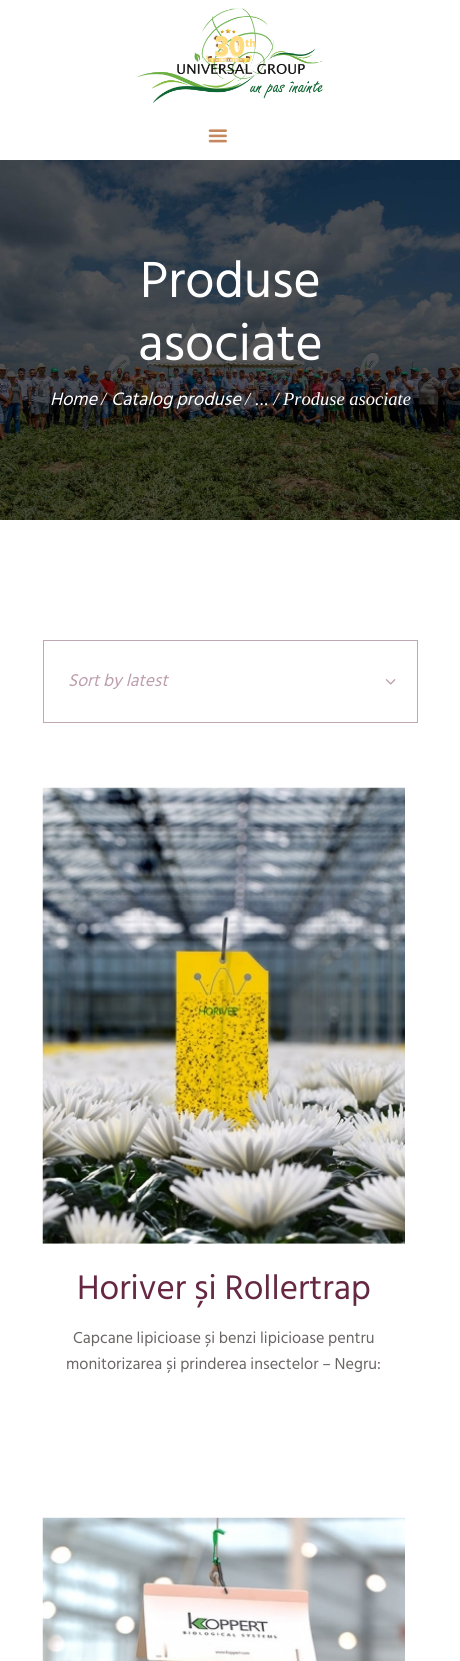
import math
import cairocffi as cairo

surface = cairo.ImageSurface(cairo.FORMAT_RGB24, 460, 1661)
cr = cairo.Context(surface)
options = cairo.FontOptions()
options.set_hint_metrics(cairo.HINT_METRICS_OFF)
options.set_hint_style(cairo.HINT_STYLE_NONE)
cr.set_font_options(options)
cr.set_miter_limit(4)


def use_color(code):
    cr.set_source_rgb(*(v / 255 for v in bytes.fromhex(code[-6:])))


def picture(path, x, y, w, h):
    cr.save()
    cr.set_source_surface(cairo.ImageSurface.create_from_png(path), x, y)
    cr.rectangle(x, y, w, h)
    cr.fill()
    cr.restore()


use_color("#ffffff")
cr.paint()
picture("img1.png", 137, 8, 186, 95)
picture("img2.png", 208, 129, 19, 14)
picture("img3.png", 0, 160, 460, 360)
cr.select_font_face("Hind Siliguri")
cr.set_font_size(52)
use_color("#ffffff")
cr.move_to(140, 297)
cr.show_text("Produse")
cr.move_to(138, 360)
cr.show_text("asociate")
cr.select_font_face("Hind Siliguri", cairo.FONT_SLANT_ITALIC)
cr.set_font_size(18.5)
cr.move_to(50, 405)
cr.show_text("Home")
cr.select_font_face("Liberation Serif", cairo.FONT_SLANT_ITALIC)
cr.move_to(101, 405)
cr.show_text("/")
cr.select_font_face("Hind Siliguri", cairo.FONT_SLANT_ITALIC)
cr.move_to(111, 405)
cr.show_text("Catalog produse")
cr.select_font_face("Liberation Serif", cairo.FONT_SLANT_ITALIC)
cr.move_to(245, 405)
cr.show_text("/")
cr.move_to(255, 405)
cr.show_text("... /")
cr.move_to(283, 405)
cr.show_text("Produse asociate")
cr.rectangle(43.5, 640.5, 374, 82)
use_color("#c1a6b3")
cr.set_line_width(1)
cr.stroke()
cr.select_font_face("Hind Siliguri", cairo.FONT_SLANT_ITALIC)
cr.set_font_size(17.5)
use_color("#bc9eac")
cr.move_to(68, 686)
cr.show_text("Sort by latest")
picture("img4.png", 385, 679, 11, 6)
picture("img5.png", 42, 787, 363, 457)
cr.select_font_face("Hind Siliguri")
cr.set_font_size(35)
use_color("#662743")
cr.move_to(77, 1299)
cr.show_text("Horiver și Rollertrap")
cr.set_font_size(16.25)
use_color("#6a6565")
cr.move_to(73, 1343)
cr.show_text("Capcane lipicioase și benzi lipicioase pentru")
cr.move_to(66, 1369)
cr.show_text("monitorizarea și prinderea insectelor – Negru:")
picture("img6.png", 42, 1517, 363, 144)
surface.write_to_png("result.png")
